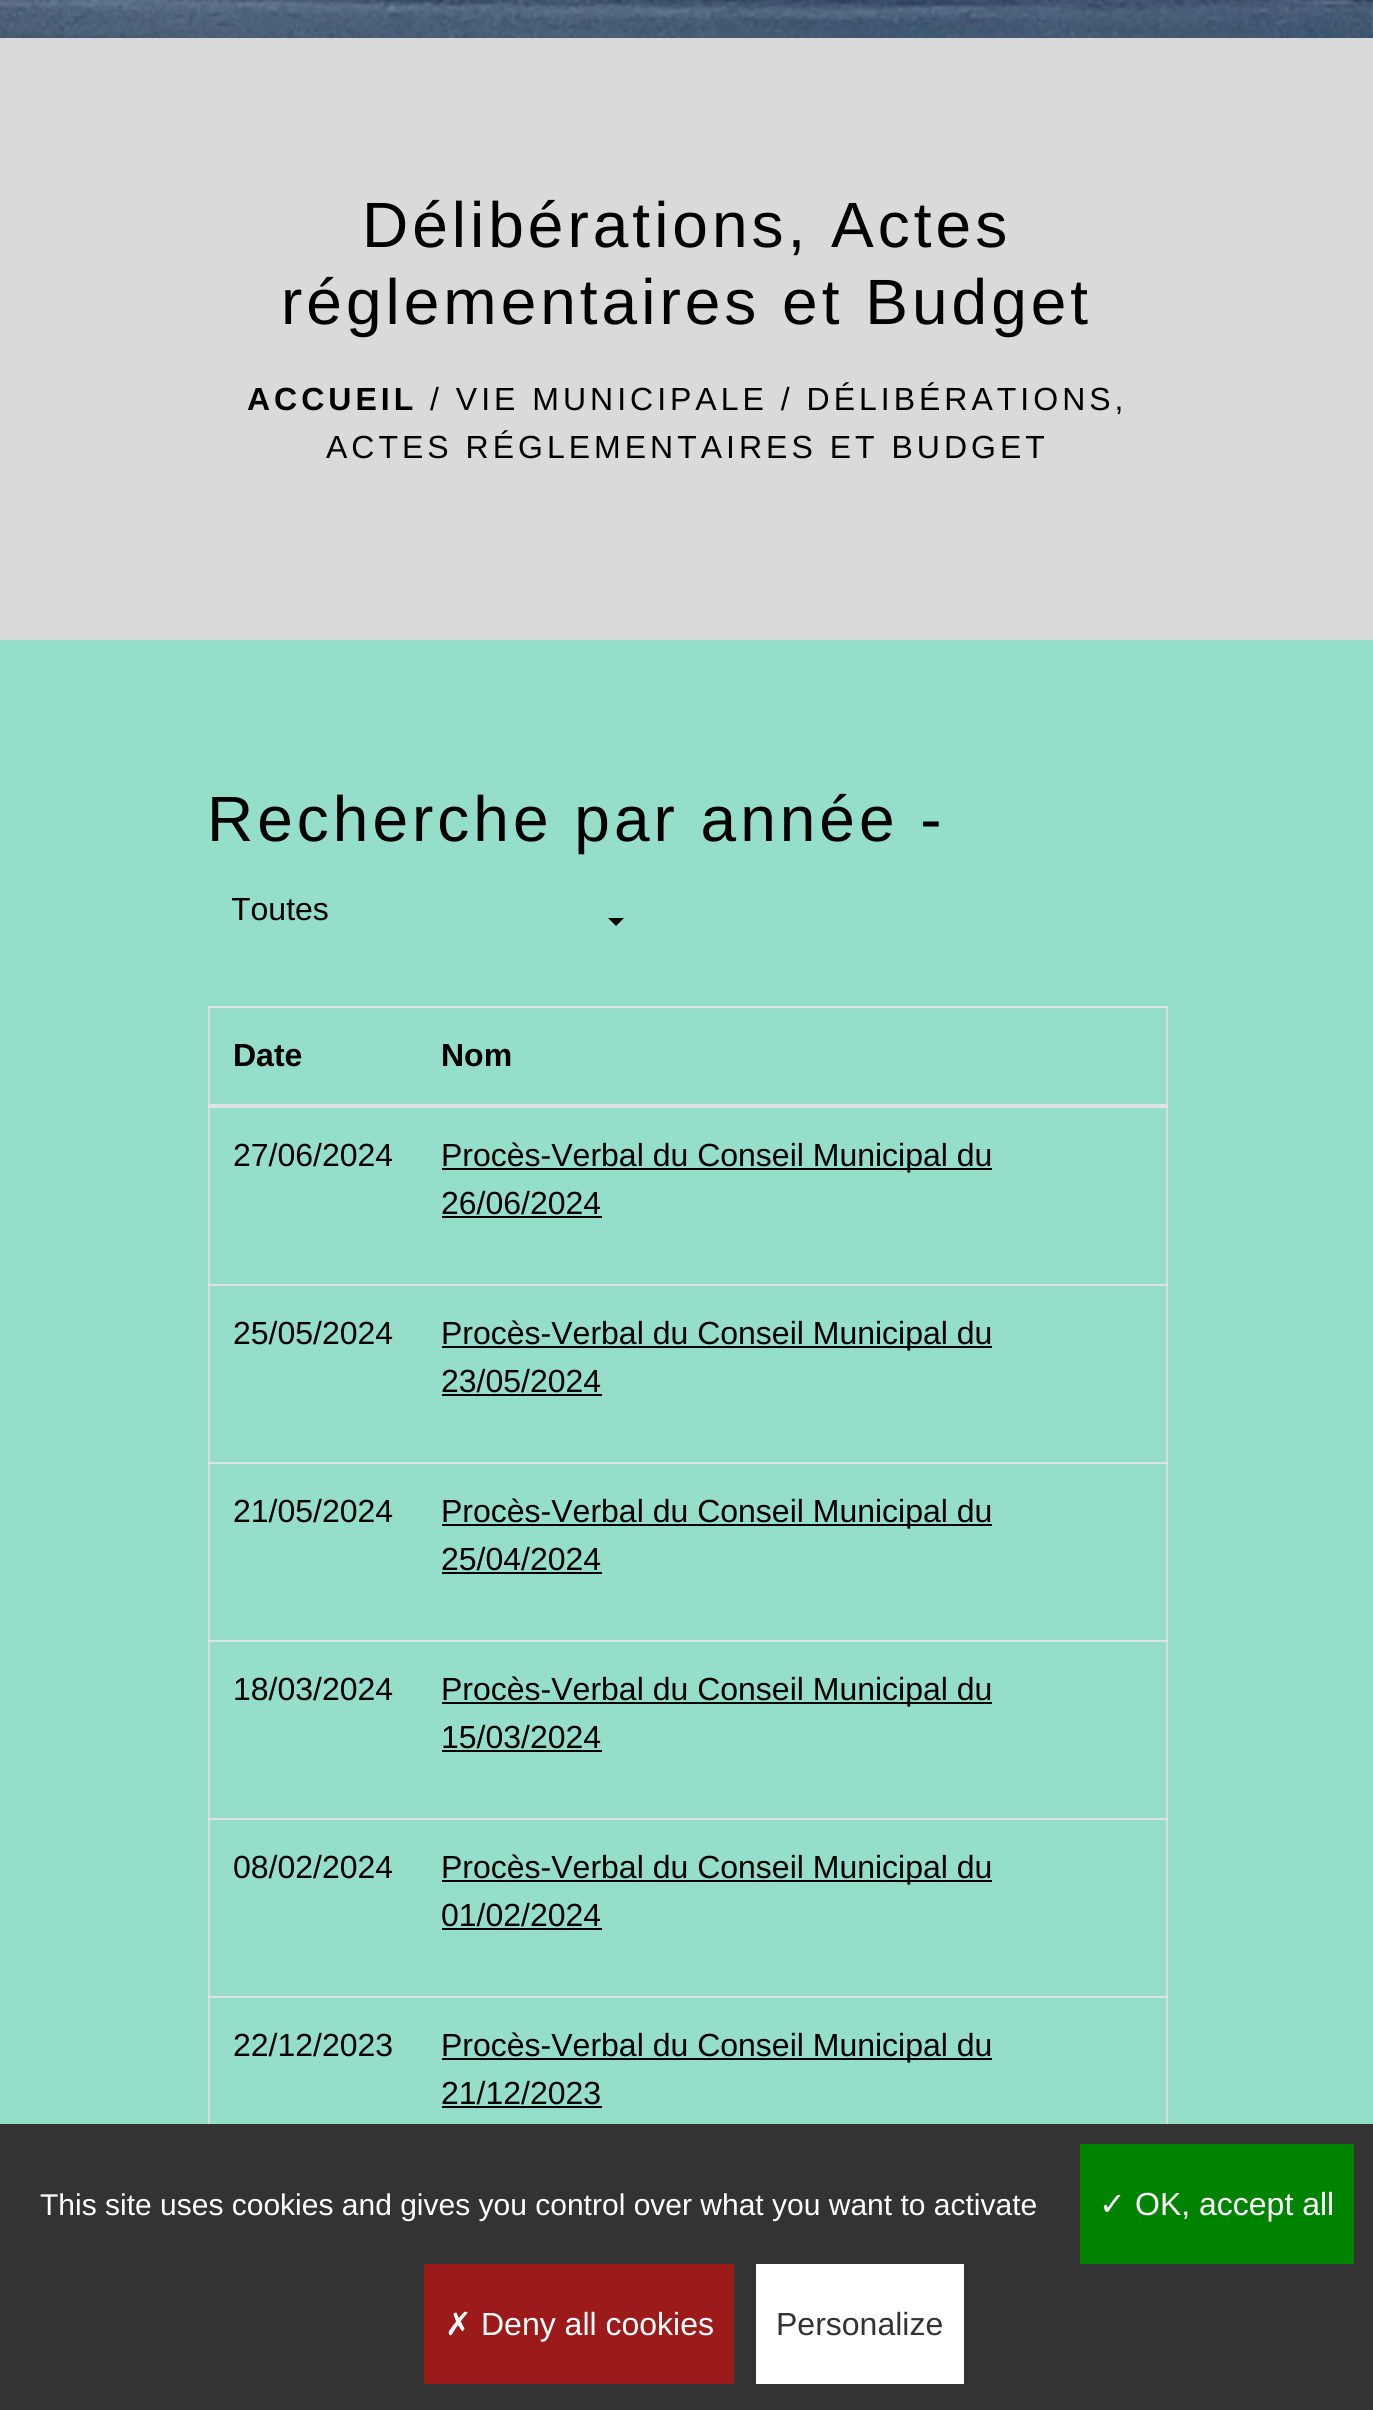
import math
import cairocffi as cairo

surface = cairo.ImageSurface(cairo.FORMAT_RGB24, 1373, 2410)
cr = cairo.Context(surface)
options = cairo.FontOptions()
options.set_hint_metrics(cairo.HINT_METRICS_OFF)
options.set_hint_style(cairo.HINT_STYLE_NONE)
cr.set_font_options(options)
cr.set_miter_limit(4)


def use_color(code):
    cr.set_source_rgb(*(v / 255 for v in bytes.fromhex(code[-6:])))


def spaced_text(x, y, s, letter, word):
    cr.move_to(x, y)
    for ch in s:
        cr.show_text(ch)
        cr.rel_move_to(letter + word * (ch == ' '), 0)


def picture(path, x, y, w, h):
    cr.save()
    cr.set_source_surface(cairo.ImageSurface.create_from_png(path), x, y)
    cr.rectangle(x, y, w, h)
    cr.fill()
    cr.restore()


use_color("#95deca")
cr.paint()
picture("img1.png", 0, 0, 1373, 38)
use_color("#dadada")
cr.rectangle(0, 38, 1373, 602)
cr.fill()
cr.select_font_face("Liberation Sans")
cr.set_font_size(64)
use_color("#000000")
spaced_text(362, 247, "Délibérations, Actes", 4, 0)
spaced_text(281, 324, "réglementaires et Budget", 4, 0)
cr.select_font_face("Liberation Sans", cairo.FONT_SLANT_NORMAL, cairo.FONT_WEIGHT_BOLD)
cr.set_font_size(32)
spaced_text(247, 410, "ACCUEIL", 4, 0)
cr.select_font_face("Liberation Sans")
spaced_text(430, 410, "/ VIE MUNICIPALE / DÉLIBÉRATIONS,", 4, 0)
spaced_text(326, 458, "ACTES RÉGLEMENTAIRES ET BUDGET", 4, 0)
cr.set_font_size(64)
spaced_text(207, 841, "Recherche par année -", 4, 0)
cr.save()
cr.rectangle(232, 886, 368, 48)
cr.clip()
cr.set_font_size(32)
cr.move_to(231, 920)
cr.show_text("Toutes")
cr.restore()
cr.new_path()
cr.move_to(608, 918)
cr.line_to(624, 918)
cr.line_to(616, 926)
cr.close_path()
cr.fill()
use_color("#dadada")
cr.rectangle(1166, 1006, 2, 1118)
cr.fill()
cr.rectangle(208, 1006, 2, 1118)
cr.fill()
cr.select_font_face("Liberation Sans", cairo.FONT_SLANT_NORMAL, cairo.FONT_WEIGHT_BOLD)
cr.set_font_size(32)
use_color("#000000")
cr.move_to(233, 1066)
cr.show_text("Date")
use_color("#dee2e6")
cr.rectangle(208, 1006, 960, 2)
cr.fill()
cr.rectangle(208, 1104, 960, 4)
cr.fill()
use_color("#000000")
cr.move_to(441, 1066)
cr.show_text("Nom")
cr.select_font_face("Liberation Sans")
cr.move_to(233, 1166)
cr.show_text("27/06/2024")
cr.rectangle(442, 1168, 550, 2)
cr.fill()
cr.move_to(441, 1166)
cr.show_text("Procès-Verbal du Conseil Municipal du")
cr.move_to(441, 1214)
cr.show_text("26/06/2024")
cr.rectangle(442, 1216, 160, 2)
cr.fill()
cr.move_to(233, 1344)
cr.show_text("25/05/2024")
use_color("#dee2e6")
cr.rectangle(208, 1284, 960, 2)
cr.fill()
use_color("#000000")
cr.rectangle(442, 1346, 550, 2)
cr.fill()
cr.move_to(441, 1344)
cr.show_text("Procès-Verbal du Conseil Municipal du")
cr.move_to(441, 1392)
cr.show_text("23/05/2024")
cr.rectangle(442, 1394, 160, 2)
cr.fill()
cr.move_to(233, 1522)
cr.show_text("21/05/2024")
use_color("#dee2e6")
cr.rectangle(208, 1462, 960, 2)
cr.fill()
use_color("#000000")
cr.rectangle(442, 1524, 550, 2)
cr.fill()
cr.move_to(441, 1522)
cr.show_text("Procès-Verbal du Conseil Municipal du")
cr.move_to(441, 1570)
cr.show_text("25/04/2024")
cr.rectangle(442, 1572, 160, 2)
cr.fill()
cr.move_to(233, 1700)
cr.show_text("18/03/2024")
use_color("#dee2e6")
cr.rectangle(208, 1640, 960, 2)
cr.fill()
use_color("#000000")
cr.rectangle(442, 1702, 550, 2)
cr.fill()
cr.move_to(441, 1700)
cr.show_text("Procès-Verbal du Conseil Municipal du")
cr.move_to(441, 1748)
cr.show_text("15/03/2024")
cr.rectangle(442, 1750, 160, 2)
cr.fill()
cr.move_to(233, 1878)
cr.show_text("08/02/2024")
use_color("#dee2e6")
cr.rectangle(208, 1818, 960, 2)
cr.fill()
use_color("#000000")
cr.rectangle(442, 1880, 550, 2)
cr.fill()
cr.move_to(441, 1878)
cr.show_text("Procès-Verbal du Conseil Municipal du")
cr.move_to(441, 1926)
cr.show_text("01/02/2024")
cr.rectangle(442, 1928, 160, 2)
cr.fill()
cr.move_to(233, 2056)
cr.show_text("22/12/2023")
use_color("#dee2e6")
cr.rectangle(208, 1996, 960, 2)
cr.fill()
use_color("#000000")
cr.rectangle(442, 2058, 550, 2)
cr.fill()
cr.move_to(441, 2056)
cr.show_text("Procès-Verbal du Conseil Municipal du")
cr.move_to(441, 2104)
cr.show_text("21/12/2023")
cr.rectangle(442, 2106, 160, 2)
cr.fill()
use_color("#333333")
cr.rectangle(0, 2124, 1373, 286)
cr.fill()
cr.set_font_size(30)
use_color("#ffffff")
cr.move_to(40, 2215)
cr.show_text("This site uses cookies and gives you control over what you want to activate")
use_color("#008300")
cr.rectangle(1080, 2144, 274, 120)
cr.fill()
cr.select_font_face("DejaVu Sans")
cr.set_font_size(32)
use_color("#ffffff")
cr.move_to(1099, 2215)
cr.show_text("✓")
cr.select_font_face("Liberation Sans")
cr.move_to(1135, 2215)
cr.show_text("OK, accept all")
use_color("#9c1a1a")
cr.rectangle(424, 2264, 310, 120)
cr.fill()
cr.select_font_face("DejaVu Sans")
use_color("#ffffff")
cr.move_to(445, 2335)
cr.show_text("✗")
cr.select_font_face("Liberation Sans")
cr.move_to(481, 2335)
cr.show_text("Deny all cookies")
cr.rectangle(756, 2264, 208, 120)
cr.fill()
use_color("#333333")
cr.move_to(776, 2335)
cr.show_text("Personalize")
surface.write_to_png("result.png")
